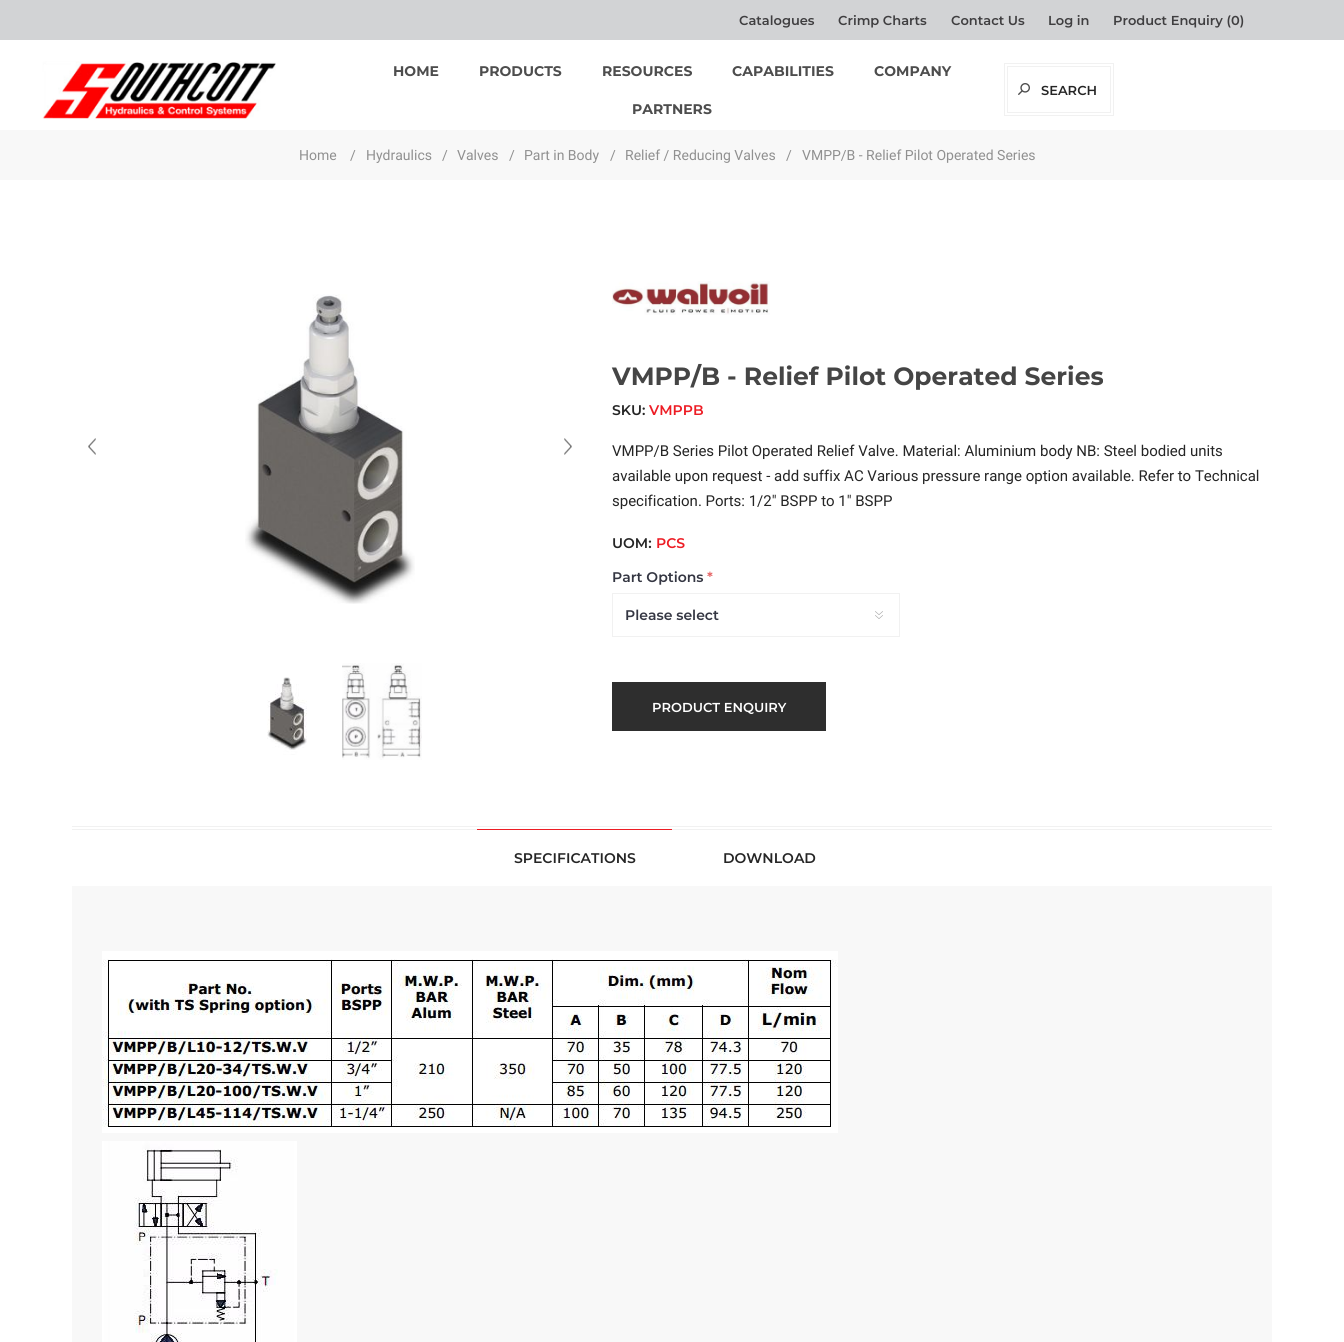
import math
import cairocffi as cairo

surface = cairo.ImageSurface(cairo.FORMAT_RGB24, 1344, 1342)
cr = cairo.Context(surface)
options = cairo.FontOptions()
options.set_hint_metrics(cairo.HINT_METRICS_OFF)
options.set_hint_style(cairo.HINT_STYLE_NONE)
cr.set_font_options(options)
cr.set_miter_limit(4)


def use_color(code):
    cr.set_source_rgb(*(v / 255 for v in bytes.fromhex(code[-6:])))


def picture(path, x, y, w, h):
    cr.save()
    cr.set_source_surface(cairo.ImageSurface.create_from_png(path), x, y)
    cr.rectangle(x, y, w, h)
    cr.fill()
    cr.restore()


use_color("#ffffff")
cr.paint()
use_color("#d2d3d5")
cr.rectangle(0, 0, 1344, 40)
cr.fill()
cr.select_font_face("Montserrat SemiBold")
cr.set_font_size(13)
use_color("#3f3e40")
cr.move_to(739, 25)
cr.show_text("Catalogues")
cr.move_to(838, 25)
cr.show_text("Crimp Charts")
cr.move_to(951, 25)
cr.show_text("Contact Us")
cr.move_to(1048, 25)
cr.show_text("Log in")
cr.move_to(1113, 25)
cr.show_text("Product Enquiry (0)")
picture("img1.png", 42, 61, 234, 59)
cr.select_font_face("Montserrat", cairo.FONT_SLANT_NORMAL, cairo.FONT_WEIGHT_BOLD)
cr.set_font_size(14)
use_color("#4d4d4d")
cr.move_to(393, 76)
cr.show_text("HOME")
cr.move_to(479, 76)
cr.show_text("PRODUCTS")
cr.move_to(602, 76)
cr.show_text("RESOURCES")
cr.move_to(732, 76)
cr.show_text("CAPABILITIES")
cr.move_to(874, 76)
cr.show_text("COMPANY")
cr.move_to(632, 114)
cr.show_text("PARTNERS")
cr.rectangle(1004.5, 63.5, 109, 52)
use_color("#f1f1f1")
cr.set_line_width(1)
cr.stroke()
cr.rectangle(1007.5, 66.5, 103, 46)
cr.stroke()
picture("img2.png", 1018, 83, 12, 12)
cr.select_font_face("Montserrat SemiBold")
cr.set_font_size(13)
use_color("#252525")
cr.move_to(1041, 95)
cr.show_text("SEARCH")
use_color("#f8f8f8")
cr.rectangle(0, 130, 1344, 50)
cr.fill()
cr.select_font_face("Roboto")
cr.set_font_size(14)
use_color("#909090")
cr.move_to(299, 160)
cr.show_text("Home")
cr.move_to(350, 160)
cr.show_text("/")
cr.move_to(366, 160)
cr.show_text("Hydraulics")
cr.move_to(442, 160)
cr.show_text("/")
cr.move_to(457, 160)
cr.show_text("Valves")
cr.move_to(509, 160)
cr.show_text("/")
cr.move_to(524, 160)
cr.show_text("Part in Body")
cr.move_to(610, 160)
cr.show_text("/")
cr.move_to(625, 160)
cr.show_text("Relief / Reducing Valves")
cr.move_to(786, 160)
cr.show_text("/")
cr.move_to(802, 160)
cr.show_text("VMPP/B - Relief Pilot Operated Series")
picture("img3.png", 88, 438, 8, 17)
picture("img4.png", 245, 294, 170, 310)
picture("img5.png", 564, 438, 8, 17)
picture("img6.png", 267, 677, 40, 78)
picture("img7.png", 342, 663, 80, 97)
picture("img8.png", 612, 281, 158, 34)
cr.select_font_face("Montserrat", cairo.FONT_SLANT_NORMAL, cairo.FONT_WEIGHT_BOLD)
cr.set_font_size(25)
use_color("#454545")
cr.move_to(612, 385)
cr.show_text("VMPP/B - Relief Pilot Operated Series")
cr.select_font_face("Montserrat SemiBold")
cr.set_font_size(14)
use_color("#252525")
cr.move_to(612, 415)
cr.show_text("SKU:")
use_color("#ed1c24")
cr.move_to(649, 415)
cr.show_text("VMPPB")
cr.select_font_face("Roboto")
cr.set_font_size(15)
use_color("#252525")
cr.move_to(612, 456)
cr.show_text("VMPP/B Series Pilot Operated Relief Valve. Material: Aluminium body NB: Steel bodied units")
cr.move_to(612, 481)
cr.show_text("available upon request - add suffix AC Various pressure range option available. Refer to Technical")
cr.move_to(612, 506)
cr.show_text("specification. Ports: 1/2\" BSPP to 1\" BSPP")
cr.select_font_face("Montserrat SemiBold")
cr.set_font_size(14)
cr.move_to(612, 548)
cr.show_text("UOM:")
use_color("#ed1c24")
cr.move_to(656, 548)
cr.show_text("PCS")
use_color("#343642")
cr.move_to(612, 582)
cr.show_text("Part Options")
use_color("#e56364")
cr.move_to(707, 582)
cr.show_text("*")
picture("img9.png", 875, 611, 8, 8)
cr.rectangle(612.5, 593.5, 287, 43)
use_color("#f1f1f1")
cr.stroke()
use_color("#343642")
cr.move_to(625, 620)
cr.show_text("Please select")
use_color("#2e2e2e")
cr.rectangle(612, 682, 214, 49)
cr.fill()
cr.set_font_size(13)
use_color("#ffffff")
cr.move_to(652, 712)
cr.show_text("PRODUCT ENQUIRY")
use_color("#f1f1f1")
cr.rectangle(72, 826, 1200, 1)
cr.fill()
cr.rectangle(72, 829, 1200, 1)
cr.fill()
use_color("#ed1c24")
cr.rectangle(477, 829, 195, 1)
cr.fill()
cr.set_font_size(14)
use_color("#252525")
cr.move_to(514, 863)
cr.show_text("SPECIFICATIONS")
cr.move_to(723, 863)
cr.show_text("DOWNLOAD")
use_color("#f8f8f8")
cr.rectangle(72, 886, 1200, 456)
cr.fill()
picture("img10.png", 102, 951, 736, 182)
picture("img11.png", 102, 1141, 195, 201)
surface.write_to_png("result.png")
